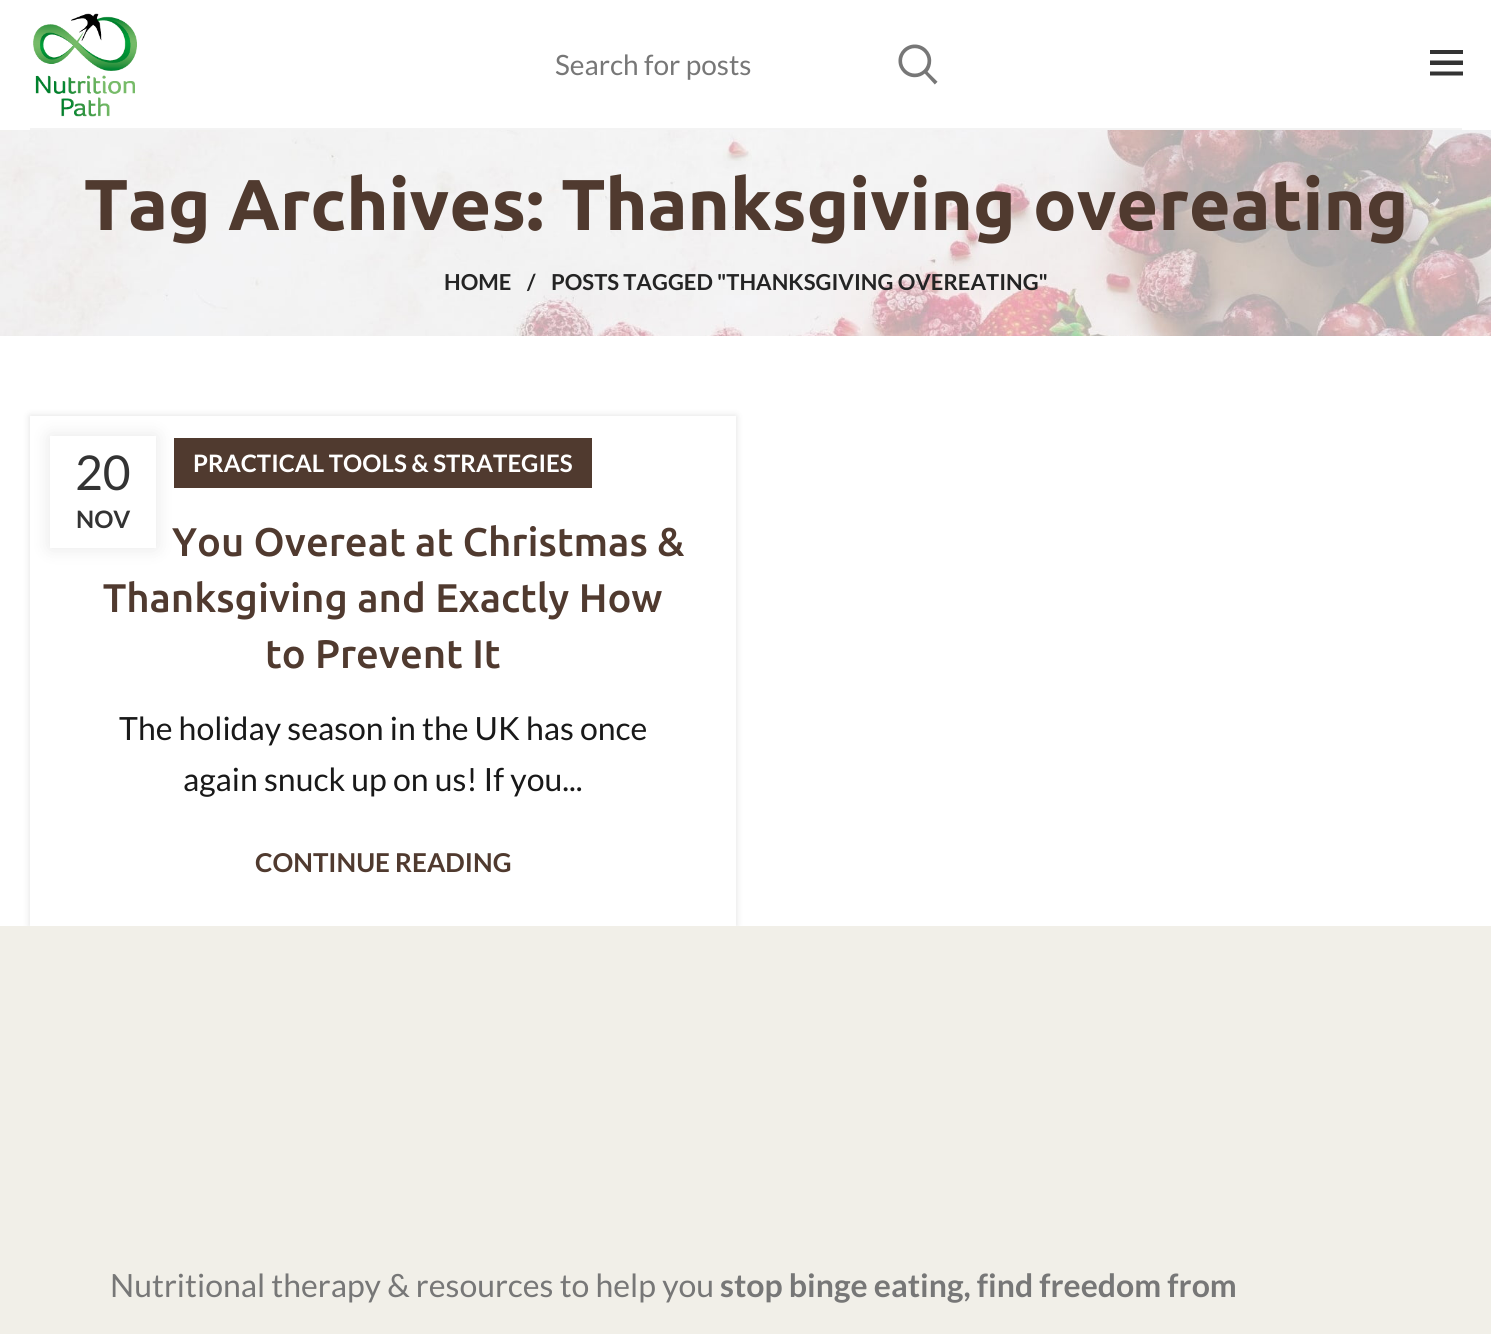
import math
import cairocffi as cairo

surface = cairo.ImageSurface(cairo.FORMAT_RGB24, 1491, 1334)
cr = cairo.Context(surface)
options = cairo.FontOptions()
options.set_hint_metrics(cairo.HINT_METRICS_OFF)
options.set_hint_style(cairo.HINT_STYLE_NONE)
cr.set_font_options(options)
cr.set_miter_limit(4)


def use_color(code):
    cr.set_source_rgb(*(v / 255 for v in bytes.fromhex(code[-6:])))


def round_rect(x, y, w, h, r):
    cr.new_sub_path()
    for i, (u, v) in enumerate([(x + w - r, y + h - r), (x + r, y + h - r), (x + r, y + r), (x + w - r, y + r)]):
        cr.arc(u, v, r, i * math.pi / 2, (i + 1) * math.pi / 2)
    cr.close_path()


def shadow(x, y, w, h, r, blur, alpha):
    cr.push_group_with_content(cairo.CONTENT_ALPHA)
    cr.set_operator(cairo.OPERATOR_SOURCE)
    for i in range(15, -16, -2):
        e = blur * i / 6
        if min(w, h) + 2 * e > 0:
            cr.set_source_rgba(0, 0, 0, alpha * math.erfc((i - 1) / 8.5) / 2)
            round_rect(x - e, y - e, w + 2 * e, h + 2 * e, max(0, min(r + e + blur * .6, min(w, h) / 2 + e)))
            cr.fill()
    cr.mask(cr.pop_group())


def picture(path, x, y, w, h):
    cr.save()
    cr.set_source_surface(cairo.ImageSurface.create_from_png(path), x, y)
    cr.rectangle(x, y, w, h)
    cr.fill()
    cr.restore()


use_color("#ffffff")
cr.paint()
use_color("#f3f3f3")
cr.rectangle(30, 128, 1432, 2)
cr.fill()
picture("img1.png", 33, 13, 104, 104)
cr.select_font_face("Lato")
cr.set_font_size(28)
use_color("#777777")
cr.move_to(555, 75)
cr.show_text("Search for posts")
picture("img2.png", 898, 44, 40, 41)
use_color("#333333")
cr.new_path()
cr.move_to(1430, 50)
cr.line_to(1463, 50)
cr.line_to(1463, 54)
cr.line_to(1430, 54)
cr.close_path()
cr.move_to(1430, 60.5)
cr.line_to(1463, 60.5)
cr.line_to(1463, 65)
cr.line_to(1430, 65)
cr.close_path()
cr.move_to(1430, 71.5)
cr.line_to(1463, 71.5)
cr.line_to(1463, 75.5)
cr.line_to(1430, 75.5)
cr.close_path()
cr.fill()
picture("img3.png", 0, 130, 1491, 206)
cr.select_font_face("Ubuntu", cairo.FONT_SLANT_NORMAL, cairo.FONT_WEIGHT_BOLD)
cr.set_font_size(72)
use_color("#503a2f")
cr.move_to(84, 230)
cr.show_text("Tag Archives: Thanksgiving overeating")
cr.select_font_face("Lato", cairo.FONT_SLANT_NORMAL, cairo.FONT_WEIGHT_BOLD)
cr.set_font_size(22)
use_color("#242424")
cr.move_to(444, 290)
cr.show_text("HOME")
cr.move_to(527, 290)
cr.show_text("/")
cr.move_to(551, 290)
cr.show_text("POSTS TAGGED \"THANKSGIVING OVEREATING\"")
cr.save()
cr.set_fill_rule(cairo.FILL_RULE_EVEN_ODD)
cr.new_path()
cr.move_to(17, 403)
cr.line_to(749, 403)
cr.line_to(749, 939)
cr.line_to(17, 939)
cr.close_path()
cr.move_to(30, 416)
cr.line_to(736, 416)
cr.line_to(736, 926)
cr.line_to(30, 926)
cr.close_path()
cr.clip()
use_color("#000000")
shadow(30, 416, 706, 510, 0, 4, 0.12)
cr.restore()
use_color("#503a2f")
cr.rectangle(174, 438, 418, 50)
cr.fill()
cr.set_font_size(24)
use_color("#ffffff")
cr.move_to(193, 472)
cr.show_text("PRACTICAL TOOLS & STRATEGIES")
cr.select_font_face("Ubuntu Medium")
cr.set_font_size(40)
use_color("#503a2f")
cr.move_to(172, 556)
cr.show_text("You Overeat at Christmas &")
cr.move_to(103, 612)
cr.show_text("Thanksgiving and Exactly How")
cr.move_to(265, 668)
cr.show_text("to Prevent It")
cr.select_font_face("Lato")
cr.set_font_size(32)
use_color("#191919")
cr.move_to(119, 740)
cr.show_text("The holiday season in the UK has once")
cr.move_to(183, 791)
cr.show_text("again snuck up on us! If you...")
cr.select_font_face("Lato", cairo.FONT_SLANT_NORMAL, cairo.FONT_WEIGHT_BOLD)
cr.set_font_size(26)
use_color("#503a2f")
cr.move_to(255, 872)
cr.show_text("CONTINUE READING")
use_color("#000000")
shadow(50, 436, 106, 112, 0, 9, 0.1)
use_color("#ffffff")
cr.rectangle(50, 436, 106, 112)
cr.fill()
cr.select_font_face("Lato")
cr.set_font_size(48)
use_color("#333333")
cr.move_to(75, 490)
cr.show_text("20")
cr.select_font_face("Lato", cairo.FONT_SLANT_NORMAL, cairo.FONT_WEIGHT_BOLD)
cr.set_font_size(24)
cr.move_to(76, 528)
cr.show_text("NOV")
use_color("#f1efe8")
cr.rectangle(0, 926, 1491, 408)
cr.fill()
cr.select_font_face("Lato")
cr.set_font_size(32)
use_color("#777777")
cr.move_to(110, 1297)
cr.show_text("Nutritional therapy & resources to help you")
cr.select_font_face("Lato", cairo.FONT_SLANT_NORMAL, cairo.FONT_WEIGHT_BOLD)
cr.move_to(720, 1297)
cr.show_text("stop binge eating, find freedom from")
surface.write_to_png("result.png")
